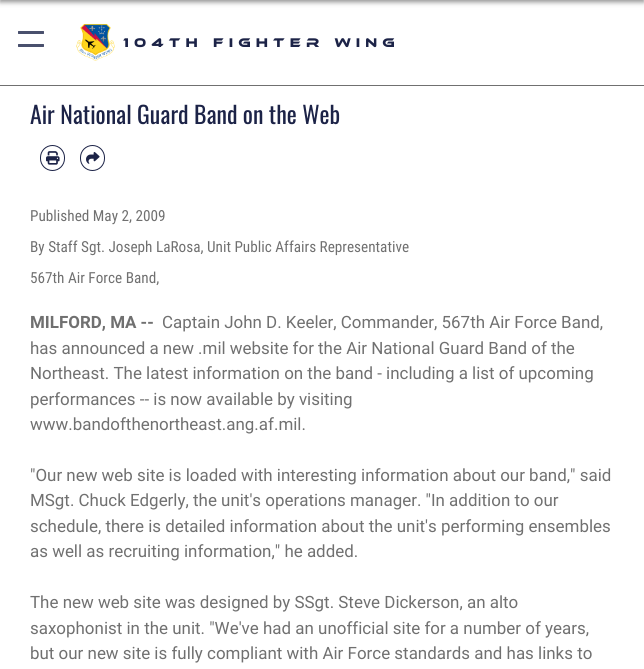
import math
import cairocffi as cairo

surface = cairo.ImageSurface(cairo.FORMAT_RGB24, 644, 669)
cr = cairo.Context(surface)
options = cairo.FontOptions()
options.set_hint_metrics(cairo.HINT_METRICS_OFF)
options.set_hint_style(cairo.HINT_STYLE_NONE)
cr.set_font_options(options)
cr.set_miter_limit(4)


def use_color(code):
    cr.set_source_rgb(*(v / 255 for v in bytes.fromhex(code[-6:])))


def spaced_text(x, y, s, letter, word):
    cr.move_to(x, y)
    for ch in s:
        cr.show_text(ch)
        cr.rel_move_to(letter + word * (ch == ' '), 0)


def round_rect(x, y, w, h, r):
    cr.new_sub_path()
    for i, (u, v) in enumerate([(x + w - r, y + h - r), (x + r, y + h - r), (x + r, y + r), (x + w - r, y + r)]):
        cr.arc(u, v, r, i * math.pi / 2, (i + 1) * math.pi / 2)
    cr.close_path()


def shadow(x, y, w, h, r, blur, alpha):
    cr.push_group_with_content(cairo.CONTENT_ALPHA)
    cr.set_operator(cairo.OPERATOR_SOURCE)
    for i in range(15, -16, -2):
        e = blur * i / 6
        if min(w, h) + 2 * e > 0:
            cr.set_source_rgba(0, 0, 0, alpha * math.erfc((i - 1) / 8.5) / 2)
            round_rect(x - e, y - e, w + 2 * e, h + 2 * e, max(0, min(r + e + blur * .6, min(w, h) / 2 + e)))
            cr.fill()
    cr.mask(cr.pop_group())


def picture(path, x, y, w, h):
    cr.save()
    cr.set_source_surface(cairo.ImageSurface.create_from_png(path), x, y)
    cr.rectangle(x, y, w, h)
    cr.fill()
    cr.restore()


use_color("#ffffff")
cr.paint()
use_color("#1a1a1a")
shadow(0, -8, 644, 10, 0, 2.5, 0.5)
use_color("#707070")
cr.rectangle(0, 85, 644, 1)
cr.fill()
use_color("#49506d")
round_rect(18, 31, 26, 3, 0.5)
cr.fill()
round_rect(18, 44, 26, 3, 0.5)
cr.fill()
picture("img1.png", 76, 24, 39, 37)
cr.select_font_face("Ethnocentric")
cr.set_font_size(13)
use_color("#1c2347")
spaced_text(123, 47, "104th Fighter Wing", 5.1, 0)
cr.select_font_face("Oswald")
cr.set_font_size(23.75)
cr.move_to(30, 124)
cr.show_text("Air National Guard Band on the Web")
round_rect(40.5, 145.5, 24, 25, 12)
cr.set_line_width(1)
cr.stroke()
picture("img2.png", 46, 151, 14, 14)
round_rect(80.5, 145.5, 24, 25, 12)
cr.stroke()
picture("img3.png", 86, 152, 14, 12)
cr.select_font_face("Roboto Condensed")
cr.set_font_size(15.25)
use_color("#707070")
cr.move_to(30, 221)
cr.show_text("Published May 2, 2009")
cr.move_to(30, 252)
cr.show_text("By Staff Sgt. Joseph LaRosa, Unit Public Affairs Representative")
cr.move_to(30, 283)
cr.show_text("567th Air Force Band,")
cr.select_font_face("Roboto", cairo.FONT_SLANT_NORMAL, cairo.FONT_WEIGHT_BOLD)
cr.set_font_size(16.95)
cr.move_to(30, 328)
cr.show_text("MILFORD, MA --")
cr.select_font_face("Roboto")
cr.move_to(162, 328)
cr.show_text("Captain John D. Keeler, Commander, 567th Air Force Band,")
cr.move_to(30, 354)
cr.show_text("has announced a new .mil website for the Air National Guard Band of the")
cr.move_to(30, 379)
cr.show_text("Northeast. The latest information on the band - including a list of upcoming")
cr.move_to(30, 405)
cr.show_text("performances -- is now available by visiting")
cr.move_to(30, 430)
cr.show_text("www.bandofthenortheast.ang.af.mil.")
cr.move_to(30, 481)
cr.show_text("\"Our new web site is loaded with interesting information about our band,\" said")
cr.move_to(30, 506)
cr.show_text("MSgt. Chuck Edgerly, the unit's operations manager. \"In addition to our")
cr.move_to(30, 532)
cr.show_text("schedule, there is detailed information about the unit's performing ensembles")
cr.move_to(30, 557)
cr.show_text("as well as recruiting information,\" he added.")
cr.move_to(30, 608)
cr.show_text("The new web site was designed by SSgt. Steve Dickerson, an alto")
cr.move_to(30, 634)
cr.show_text("saxophonist in the unit. \"We've had an unofficial site for a number of years,")
cr.move_to(30, 659)
cr.show_text("but our new site is fully compliant with Air Force standards and has links to")
surface.write_to_png("result.png")
